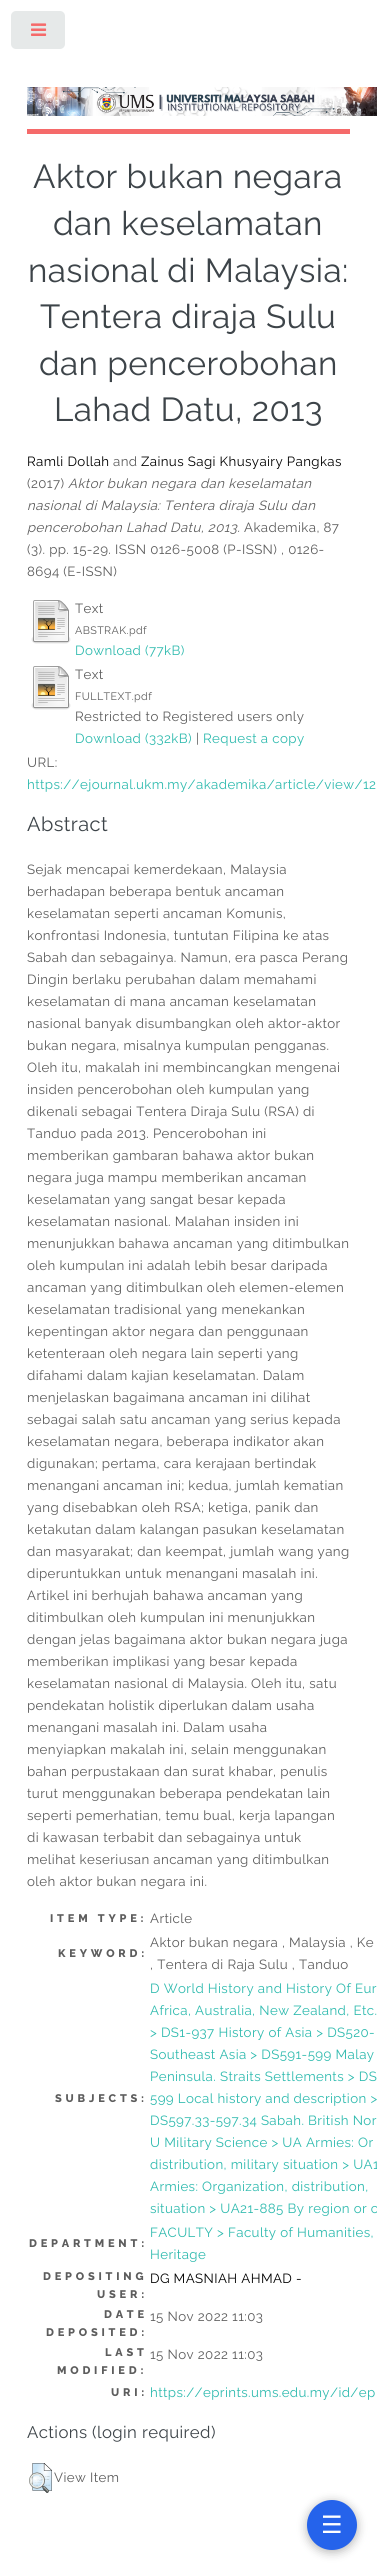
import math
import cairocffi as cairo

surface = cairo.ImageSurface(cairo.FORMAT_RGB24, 377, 2570)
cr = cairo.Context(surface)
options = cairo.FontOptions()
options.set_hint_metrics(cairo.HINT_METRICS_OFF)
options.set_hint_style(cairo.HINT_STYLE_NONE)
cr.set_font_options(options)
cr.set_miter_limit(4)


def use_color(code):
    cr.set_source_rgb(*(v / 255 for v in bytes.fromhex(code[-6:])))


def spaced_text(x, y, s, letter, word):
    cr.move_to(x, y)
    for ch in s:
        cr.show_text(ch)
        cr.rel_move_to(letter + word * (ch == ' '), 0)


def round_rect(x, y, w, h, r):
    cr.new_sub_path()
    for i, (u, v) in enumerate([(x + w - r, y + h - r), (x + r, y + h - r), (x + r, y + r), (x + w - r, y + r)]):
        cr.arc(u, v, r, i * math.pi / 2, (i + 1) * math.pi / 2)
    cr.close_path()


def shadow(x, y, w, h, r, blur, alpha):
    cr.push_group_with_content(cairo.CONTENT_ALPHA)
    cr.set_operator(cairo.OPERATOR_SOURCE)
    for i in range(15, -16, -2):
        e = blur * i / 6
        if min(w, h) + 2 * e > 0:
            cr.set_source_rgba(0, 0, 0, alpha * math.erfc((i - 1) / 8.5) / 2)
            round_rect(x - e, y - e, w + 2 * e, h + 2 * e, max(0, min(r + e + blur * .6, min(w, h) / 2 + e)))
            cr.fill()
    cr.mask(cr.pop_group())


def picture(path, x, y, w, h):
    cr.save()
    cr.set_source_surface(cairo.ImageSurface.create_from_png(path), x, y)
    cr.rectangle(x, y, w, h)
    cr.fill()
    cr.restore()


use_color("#ffffff")
cr.paint()
use_color("#e6e9e9")
round_rect(11, 11, 54, 38, 5)
cr.fill()
picture("img1.png", 31, 23, 16, 13)
use_color("#f56a6a")
cr.rectangle(27, 129, 323, 5)
cr.fill()
picture("img2.png", 27, 87, 350, 29)
cr.select_font_face("Raleway")
cr.set_font_size(33.25)
use_color("#3d4449")
spaced_text(33, 188, "Aktor bukan negara", 0.4, 0)
spaced_text(53, 235, "dan keselamatan", 0.4, 0)
spaced_text(28, 282, "nasional di Malaysia:", 0.4, 0)
spaced_text(40, 328, "Tentera diraja Sulu", 0.4, 0)
spaced_text(39, 375, "dan pencerobohan", 0.4, 0)
spaced_text(54, 421, "Lahad Datu, 2013", 0.4, 0)
cr.set_font_size(13.3)
use_color("#000000")
spaced_text(27, 466, "Ramli Dollah", 0.4, 0)
use_color("#5d5d5d")
spaced_text(113, 466, "and", 0.4, 0)
use_color("#000000")
spaced_text(141, 466, "Zainus Sagi Khusyairy Pangkas", 0.4, 0)
use_color("#5d5d5d")
spaced_text(27, 488, "(2017)", 0.4, 0)
cr.select_font_face("Raleway", cairo.FONT_SLANT_ITALIC)
spaced_text(68, 488, "Aktor bukan negara dan keselamatan", 0.4, 0)
spaced_text(27, 510, "nasional di Malaysia: Tentera diraja Sulu dan", 0.4, 0)
spaced_text(27, 532, "pencerobohan Lahad Datu, 2013.", 0.4, 0)
cr.select_font_face("Raleway")
spaced_text(244, 532, "Akademika, 87", 0.4, 0)
spaced_text(27, 554, "(3). pp. 15-29. ISSN 0126-5008 (P-ISSN) , 0126-", 0.4, 0)
spaced_text(27, 576, "8694 (E-ISSN)", 0.4, 0)
picture("img3.png", 31, 600, 40, 44)
spaced_text(75, 613, "Text", 0.4, 0)
cr.set_font_size(10.75)
spaced_text(75, 634, "ABSTRAK.pdf", 0.4, 0)
cr.set_font_size(13.3)
use_color("#2ebaae")
spaced_text(75, 655, "Download (77kB)", 0.4, 0)
picture("img3.png", 31, 666, 40, 44)
use_color("#5d5d5d")
spaced_text(75, 679, "Text", 0.4, 0)
cr.set_font_size(10.75)
spaced_text(75, 700, "FULLTEXT.pdf", 0.4, 0)
cr.set_font_size(13.3)
spaced_text(75, 721, "Restricted to Registered users only", 0.4, 0)
use_color("#2ebaae")
spaced_text(75, 743, "Download (332kB)", 0.4, 0)
use_color("#5d5d5d")
spaced_text(196, 743, "|", 0.4, 0)
use_color("#2ebaae")
spaced_text(203, 743, "Request a copy", 0.4, 0)
use_color("#5d5d5d")
spaced_text(27, 767, "URL:", 0.4, 0)
use_color("#2ebaae")
spaced_text(27, 789, "https://ejournal.ukm.my/akademika/article/view/12", 0.4, 0)
cr.set_font_size(20)
use_color("#3d4449")
spaced_text(27, 831, "Abstract", 0.4, 0)
cr.set_font_size(13.3)
use_color("#5d5d5d")
spaced_text(27, 874, "Sejak mencapai kemerdekaan, Malaysia", 0.4, 0)
spaced_text(27, 896, "berhadapan beberapa bentuk ancaman", 0.4, 0)
spaced_text(27, 918, "keselamatan seperti ancaman Komunis,", 0.4, 0)
spaced_text(27, 940, "konfrontasi Indonesia, tuntutan Filipina ke atas", 0.4, 0)
spaced_text(27, 962, "Sabah dan sebagainya. Namun, era pasca Perang", 0.4, 0)
spaced_text(27, 984, "Dingin berlaku perubahan dalam memahami", 0.4, 0)
spaced_text(27, 1006, "keselamatan di mana ancaman keselamatan", 0.4, 0)
spaced_text(27, 1028, "nasional banyak disumbangkan oleh aktor-aktor", 0.4, 0)
spaced_text(27, 1050, "bukan negara, misalnya kumpulan pengganas.", 0.4, 0)
spaced_text(27, 1072, "Oleh itu, makalah ini membincangkan mengenai", 0.4, 0)
spaced_text(27, 1094, "insiden pencerobohan oleh kumpulan yang", 0.4, 0)
spaced_text(27, 1116, "dikenali sebagai Tentera Diraja Sulu (RSA) di", 0.4, 0)
spaced_text(27, 1138, "Tanduo pada 2013. Pencerobohan ini", 0.4, 0)
spaced_text(27, 1160, "memberikan gambaran bahawa aktor bukan", 0.4, 0)
spaced_text(27, 1182, "negara juga mampu memberikan ancaman", 0.4, 0)
spaced_text(27, 1204, "keselamatan yang sangat besar kepada", 0.4, 0)
spaced_text(27, 1226, "keselamatan nasional. Malahan insiden ini", 0.4, 0)
spaced_text(27, 1248, "menunjukkan bahawa ancaman yang ditimbulkan", 0.4, 0)
spaced_text(27, 1270, "oleh kumpulan ini adalah lebih besar daripada", 0.4, 0)
spaced_text(27, 1292, "ancaman yang ditimbulkan oleh elemen-elemen", 0.4, 0)
spaced_text(27, 1314, "keselamatan tradisional yang menekankan", 0.4, 0)
spaced_text(27, 1336, "kepentingan aktor negara dan penggunaan", 0.4, 0)
spaced_text(27, 1358, "ketenteraan oleh negara lain seperti yang", 0.4, 0)
spaced_text(27, 1380, "difahami dalam kajian keselamatan. Dalam", 0.4, 0)
spaced_text(27, 1402, "menjelaskan bagaimana ancaman ini dilihat", 0.4, 0)
spaced_text(27, 1424, "sebagai salah satu ancaman yang serius kepada", 0.4, 0)
spaced_text(27, 1446, "keselamatan negara, beberapa indikator akan", 0.4, 0)
spaced_text(27, 1468, "digunakan; pertama, cara kerajaan bertindak", 0.4, 0)
spaced_text(27, 1490, "menangani ancaman ini; kedua, jumlah kematian", 0.4, 0)
spaced_text(27, 1512, "yang disebabkan oleh RSA; ketiga, panik dan", 0.4, 0)
spaced_text(27, 1534, "ketakutan dalam kalangan pasukan keselamatan", 0.4, 0)
spaced_text(27, 1556, "dan masyarakat; dan keempat, jumlah wang yang", 0.4, 0)
spaced_text(27, 1578, "diperuntukkan untuk menangani masalah ini.", 0.4, 0)
spaced_text(27, 1600, "Artikel ini berhujah bahawa ancaman yang", 0.4, 0)
spaced_text(27, 1622, "ditimbulkan oleh kumpulan ini menunjukkan", 0.4, 0)
spaced_text(27, 1644, "dengan jelas bagaimana aktor bukan negara juga", 0.4, 0)
spaced_text(27, 1666, "memberikan implikasi yang besar kepada", 0.4, 0)
spaced_text(27, 1688, "keselamatan nasional di Malaysia. Oleh itu, satu", 0.4, 0)
spaced_text(27, 1710, "pendekatan holistik diperlukan dalam usaha", 0.4, 0)
spaced_text(27, 1732, "menangani masalah ini. Dalam usaha", 0.4, 0)
spaced_text(27, 1754, "menyiapkan makalah ini, selain menggunakan", 0.4, 0)
spaced_text(27, 1776, "bahan perpustakaan dan surat khabar, penulis", 0.4, 0)
spaced_text(27, 1798, "turut menggunakan beberapa pendekatan lain", 0.4, 0)
spaced_text(27, 1820, "seperti pemerhatian, temu bual, kerja lapangan", 0.4, 0)
spaced_text(27, 1842, "di kawasan terbabit dan sebagainya untuk", 0.4, 0)
spaced_text(27, 1864, "melihat keseriusan ancaman yang ditimbulkan", 0.4, 0)
spaced_text(27, 1886, "oleh aktor bukan negara ini.", 0.4, 0)
cr.select_font_face("Raleway ExtraBold")
cr.set_font_size(11)
spaced_text(50, 1922, "ITEM TYPE:", 3.8, 0)
cr.select_font_face("Raleway")
cr.set_font_size(13.3)
spaced_text(150, 1923, "Article", 0.4, 0)
cr.select_font_face("Raleway ExtraBold")
cr.set_font_size(11)
spaced_text(58, 1957, "KEYWORD:", 3.8, 0)
cr.select_font_face("Raleway")
cr.set_font_size(13.3)
spaced_text(150, 1947, "Aktor bukan negara , Malaysia , Ke", 0.4, 0)
spaced_text(150, 1969, ", Tentera di Raja Sulu , Tanduo", 0.4, 0)
cr.select_font_face("Raleway ExtraBold")
cr.set_font_size(11)
spaced_text(55, 2102, "SUBJECTS:", 3.8, 0)
cr.select_font_face("Raleway")
cr.set_font_size(13.3)
use_color("#2ebaae")
spaced_text(150, 1993, "D World History and History Of Eur", 0.4, 0)
spaced_text(150, 2015, "Africa, Australia, New Zealand, Etc.", 0.4, 0)
spaced_text(150, 2037, "> DS1-937 History of Asia > DS520-", 0.4, 0)
spaced_text(150, 2059, "Southeast Asia > DS591-599 Malay", 0.4, 0)
spaced_text(150, 2081, "Peninsula. Straits Settlements > DS", 0.4, 0)
spaced_text(150, 2103, "599 Local history and description >", 0.4, 0)
spaced_text(150, 2125, "DS597.33-597.34 Sabah. British Nor", 0.4, 0)
spaced_text(150, 2147, "U Military Science > UA Armies: Or", 0.4, 0)
spaced_text(150, 2169, "distribution, military situation > UA1", 0.4, 0)
spaced_text(150, 2191, "Armies: Organization, distribution,", 0.4, 0)
spaced_text(150, 2213, "situation > UA21-885 By region or c", 0.4, 0)
cr.select_font_face("Raleway ExtraBold")
cr.set_font_size(11)
use_color("#5d5d5d")
spaced_text(29, 2247, "DEPARTMENT:", 3.8, 0)
cr.select_font_face("Raleway")
cr.set_font_size(13.3)
use_color("#2ebaae")
spaced_text(150, 2237, "FACULTY > Faculty of Humanities,", 0.4, 0)
spaced_text(150, 2259, "Heritage", 0.4, 0)
cr.select_font_face("Raleway ExtraBold")
cr.set_font_size(11)
use_color("#5d5d5d")
spaced_text(43, 2280, "DEPOSITING", 3.8, 0)
spaced_text(97, 2298, "USER:", 3.8, 0)
cr.select_font_face("Raleway")
cr.set_font_size(13.3)
use_color("#000000")
spaced_text(150, 2283, "DG MASNIAH AHMAD -", 0.4, 0)
cr.select_font_face("Raleway ExtraBold")
cr.set_font_size(11)
use_color("#5d5d5d")
spaced_text(104, 2318, "DATE", 3.8, 0)
spaced_text(46, 2336, "DEPOSITED:", 3.8, 0)
cr.select_font_face("Raleway")
cr.set_font_size(13.3)
spaced_text(150, 2321, "15 Nov 2022 11:03", 0.4, 0)
cr.select_font_face("Raleway ExtraBold")
cr.set_font_size(11)
spaced_text(105, 2356, "LAST", 3.8, 0)
spaced_text(57, 2374, "MODIFIED:", 3.8, 0)
cr.select_font_face("Raleway")
cr.set_font_size(13.3)
spaced_text(150, 2359, "15 Nov 2022 11:03", 0.4, 0)
cr.select_font_face("Raleway ExtraBold")
cr.set_font_size(11)
spaced_text(111, 2396, "URI:", 3.8, 0)
cr.select_font_face("Raleway")
cr.set_font_size(13.3)
use_color("#2ebaae")
spaced_text(150, 2397, "https://eprints.ums.edu.my/id/ep", 0.4, 0)
cr.set_font_size(16.75)
use_color("#3d4449")
spaced_text(27, 2438, "Actions (login required)", 0.4, 0)
picture("img4.png", 29, 2463, 23, 30)
cr.set_font_size(13.3)
use_color("#5d5d5d")
spaced_text(54, 2482, "View Item", 0.4, 0)
use_color("#000000")
shadow(307, 2502, 50, 50, 25, 5, 0.3)
use_color("#2563eb")
cr.arc(332, 2525, 25, 0, 2 * math.pi)
cr.fill()
cr.select_font_face("DejaVu Sans")
cr.set_font_size(24)
use_color("#ffffff")
cr.move_to(321, 2533)
cr.show_text("☰")
surface.write_to_png("result.png")
